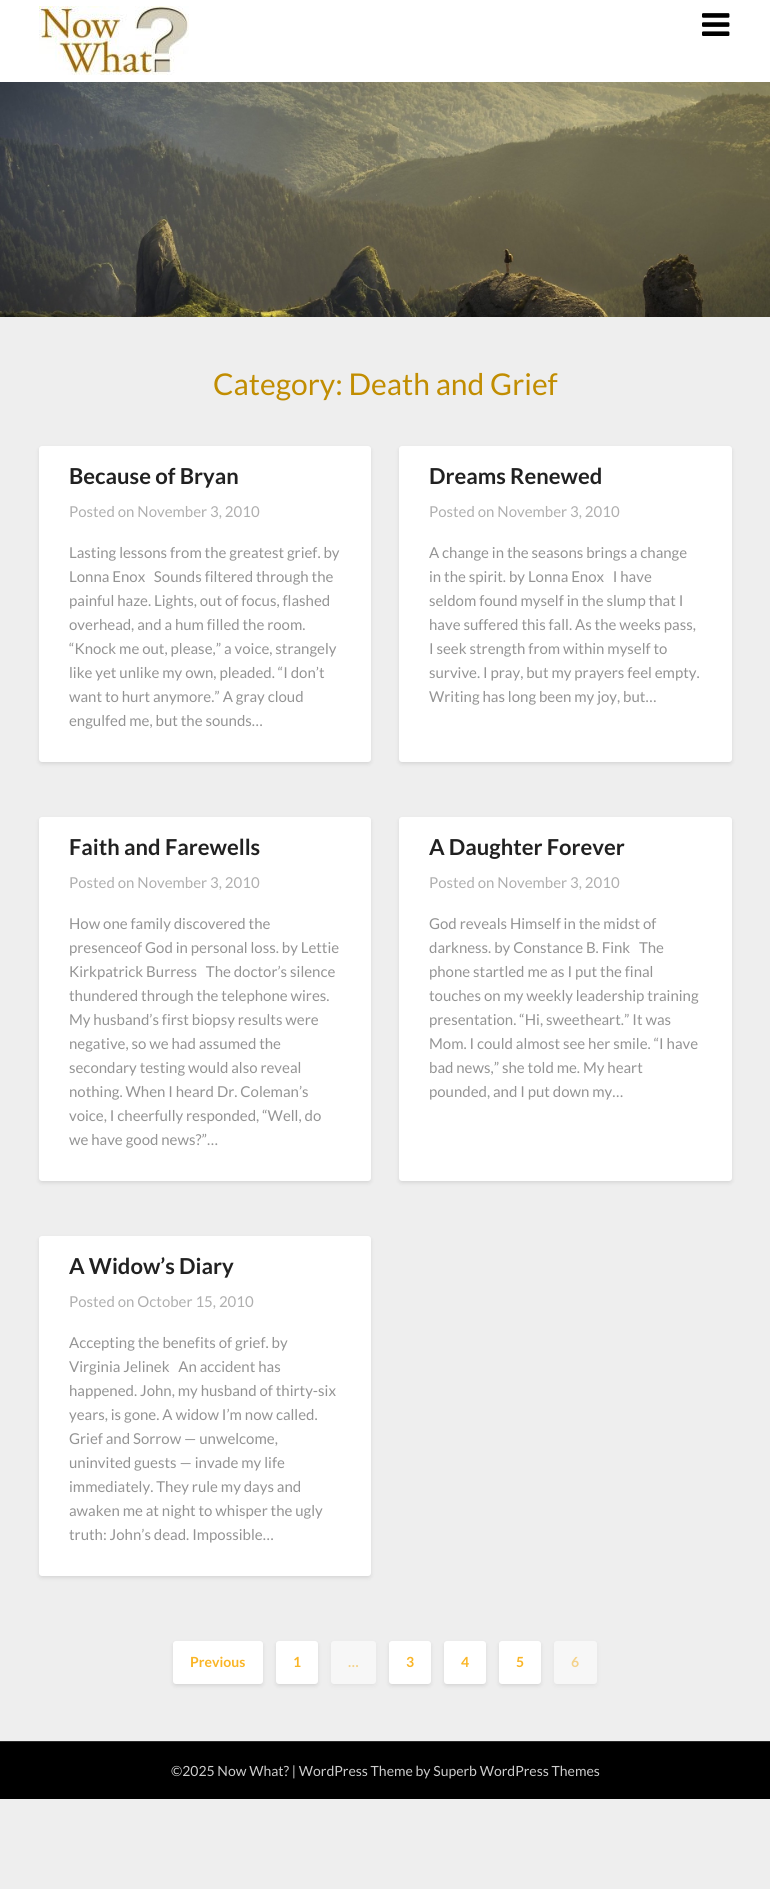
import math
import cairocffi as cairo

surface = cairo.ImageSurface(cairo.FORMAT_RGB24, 770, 1889)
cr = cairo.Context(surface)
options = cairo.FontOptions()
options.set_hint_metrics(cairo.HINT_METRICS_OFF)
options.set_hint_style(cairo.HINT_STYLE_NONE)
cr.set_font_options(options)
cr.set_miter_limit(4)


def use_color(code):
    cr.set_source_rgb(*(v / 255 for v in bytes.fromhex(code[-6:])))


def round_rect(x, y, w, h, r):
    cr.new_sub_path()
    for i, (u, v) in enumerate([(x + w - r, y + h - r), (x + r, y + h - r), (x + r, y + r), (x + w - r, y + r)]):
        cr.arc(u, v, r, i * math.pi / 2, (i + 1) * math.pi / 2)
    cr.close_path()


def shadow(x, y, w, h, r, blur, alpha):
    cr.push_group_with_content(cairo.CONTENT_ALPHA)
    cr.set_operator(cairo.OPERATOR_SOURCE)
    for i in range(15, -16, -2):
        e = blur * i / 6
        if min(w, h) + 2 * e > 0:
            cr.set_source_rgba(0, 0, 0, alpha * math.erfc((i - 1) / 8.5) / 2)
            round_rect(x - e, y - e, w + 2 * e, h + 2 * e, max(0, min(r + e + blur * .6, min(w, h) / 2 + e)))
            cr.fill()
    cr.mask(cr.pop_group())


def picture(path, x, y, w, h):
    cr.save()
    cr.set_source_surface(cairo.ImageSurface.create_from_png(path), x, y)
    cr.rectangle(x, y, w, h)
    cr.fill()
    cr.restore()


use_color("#eeeeee")
cr.paint()
use_color("#ffffff")
cr.rectangle(0, 0, 770, 82)
cr.fill()
picture("img1.png", 39, 6, 150, 69)
picture("img2.png", 702, 13, 28, 23)
picture("img3.png", 0, 82, 770, 235)
cr.select_font_face("Lato")
cr.set_font_size(30)
use_color("#c18d01")
cr.move_to(213, 395)
cr.show_text("Category: Death and Grief")
use_color("#000000")
shadow(39, 448, 332, 316, 3, 2, 0.1)
use_color("#ffffff")
round_rect(39, 446, 332, 316, 3)
cr.fill()
cr.select_font_face("Lato", cairo.FONT_SLANT_NORMAL, cairo.FONT_WEIGHT_BOLD)
cr.set_font_size(22)
use_color("#212121")
cr.move_to(69, 484)
cr.show_text("Because of Bryan")
cr.select_font_face("Lato")
cr.set_font_size(15)
use_color("#afafaf")
cr.move_to(69, 517)
cr.show_text("Posted on November 3, 2010")
use_color("#949494")
cr.move_to(69, 558)
cr.show_text("Lasting lessons from the greatest grief. by")
cr.move_to(69, 582)
cr.show_text("Lonna Enox   Sounds filtered through the")
cr.move_to(69, 606)
cr.show_text("painful haze. Lights, out of focus, flashed")
cr.move_to(69, 630)
cr.show_text("overhead, and a hum filled the room.")
cr.move_to(69, 654)
cr.show_text("“Knock me out, please,” a voice, strangely")
cr.move_to(69, 678)
cr.show_text("like yet unlike my own, pleaded. “I don’t")
cr.move_to(69, 702)
cr.show_text("want to hurt anymore.” A gray cloud")
cr.move_to(69, 726)
cr.show_text("engulfed me, but the sounds…")
use_color("#000000")
shadow(399, 448, 333, 316, 3, 2, 0.1)
use_color("#ffffff")
round_rect(399, 446, 333, 316, 3)
cr.fill()
cr.select_font_face("Lato", cairo.FONT_SLANT_NORMAL, cairo.FONT_WEIGHT_BOLD)
cr.set_font_size(22)
use_color("#212121")
cr.move_to(429, 484)
cr.show_text("Dreams Renewed")
cr.select_font_face("Lato")
cr.set_font_size(15)
use_color("#afafaf")
cr.move_to(429, 517)
cr.show_text("Posted on November 3, 2010")
use_color("#949494")
cr.move_to(429, 558)
cr.show_text("A change in the seasons brings a change")
cr.move_to(429, 582)
cr.show_text("in the spirit. by Lonna Enox   I have")
cr.move_to(429, 606)
cr.show_text("seldom found myself in the slump that I")
cr.move_to(429, 630)
cr.show_text("have suffered this fall. As the weeks pass,")
cr.move_to(429, 654)
cr.show_text("I seek strength from within myself to")
cr.move_to(429, 678)
cr.show_text("survive. I pray, but my prayers feel empty.")
cr.move_to(429, 702)
cr.show_text("Writing has long been my joy, but…")
use_color("#000000")
shadow(39, 819, 332, 364, 3, 2, 0.1)
use_color("#ffffff")
round_rect(39, 817, 332, 364, 3)
cr.fill()
cr.select_font_face("Lato", cairo.FONT_SLANT_NORMAL, cairo.FONT_WEIGHT_BOLD)
cr.set_font_size(22)
use_color("#212121")
cr.move_to(69, 855)
cr.show_text("Faith and Farewells")
cr.select_font_face("Lato")
cr.set_font_size(15)
use_color("#afafaf")
cr.move_to(69, 888)
cr.show_text("Posted on November 3, 2010")
use_color("#949494")
cr.move_to(69, 929)
cr.show_text("How one family discovered the")
cr.move_to(69, 953)
cr.show_text("presenceof God in personal loss. by Lettie")
cr.move_to(69, 977)
cr.show_text("Kirkpatrick Burress   The doctor’s silence")
cr.move_to(69, 1001)
cr.show_text("thundered through the telephone wires.")
cr.move_to(69, 1025)
cr.show_text("My husband’s first biopsy results were")
cr.move_to(69, 1049)
cr.show_text("negative, so we had assumed the")
cr.move_to(69, 1073)
cr.show_text("secondary testing would also reveal")
cr.move_to(69, 1097)
cr.show_text("nothing. When I heard Dr. Coleman’s")
cr.move_to(69, 1121)
cr.show_text("voice, I cheerfully responded, “Well, do")
cr.move_to(69, 1145)
cr.show_text("we have good news?”…")
use_color("#000000")
shadow(399, 819, 333, 364, 3, 2, 0.1)
use_color("#ffffff")
round_rect(399, 817, 333, 364, 3)
cr.fill()
cr.select_font_face("Lato", cairo.FONT_SLANT_NORMAL, cairo.FONT_WEIGHT_BOLD)
cr.set_font_size(22)
use_color("#212121")
cr.move_to(429, 855)
cr.show_text("A Daughter Forever")
cr.select_font_face("Lato")
cr.set_font_size(15)
use_color("#afafaf")
cr.move_to(429, 888)
cr.show_text("Posted on November 3, 2010")
use_color("#949494")
cr.move_to(429, 929)
cr.show_text("God reveals Himself in the midst of")
cr.move_to(429, 953)
cr.show_text("darkness. by Constance B. Fink   The")
cr.move_to(429, 977)
cr.show_text("phone startled me as I put the final")
cr.move_to(429, 1001)
cr.show_text("touches on my weekly leadership training")
cr.move_to(429, 1025)
cr.show_text("presentation. “Hi, sweetheart.” It was")
cr.move_to(429, 1049)
cr.show_text("Mom. I could almost see her smile. “I have")
cr.move_to(429, 1073)
cr.show_text("bad news,” she told me. My heart")
cr.move_to(429, 1097)
cr.show_text("pounded, and I put down my…")
use_color("#000000")
shadow(39, 1238, 332, 340, 3, 2, 0.1)
use_color("#ffffff")
round_rect(39, 1236, 332, 340, 3)
cr.fill()
cr.select_font_face("Lato", cairo.FONT_SLANT_NORMAL, cairo.FONT_WEIGHT_BOLD)
cr.set_font_size(22)
use_color("#212121")
cr.move_to(69, 1274)
cr.show_text("A Widow’s Diary")
cr.select_font_face("Lato")
cr.set_font_size(15)
use_color("#afafaf")
cr.move_to(69, 1307)
cr.show_text("Posted on October 15, 2010")
use_color("#949494")
cr.move_to(69, 1348)
cr.show_text("Accepting the benefits of grief. by")
cr.move_to(69, 1372)
cr.show_text("Virginia Jelinek   An accident has")
cr.move_to(69, 1396)
cr.show_text("happened. John, my husband of thirty-six")
cr.move_to(69, 1420)
cr.show_text("years, is gone. A widow I’m now called.")
cr.move_to(69, 1444)
cr.show_text("Grief and Sorrow — unwelcome,")
cr.move_to(69, 1468)
cr.show_text("uninvited guests — invade my life")
cr.move_to(69, 1492)
cr.show_text("immediately. They rule my days and")
cr.move_to(69, 1516)
cr.show_text("awaken me at night to whisper the ugly")
cr.move_to(69, 1540)
cr.show_text("truth: John’s dead. Impossible…")
use_color("#000000")
shadow(173, 1643, 90, 43, 3, 2, 0.1)
use_color("#ffffff")
round_rect(173, 1641, 90, 43, 3)
cr.fill()
cr.select_font_face("Lato", cairo.FONT_SLANT_NORMAL, cairo.FONT_WEIGHT_BOLD)
cr.set_font_size(14)
use_color("#fab526")
cr.move_to(190, 1667)
cr.show_text("Previous")
use_color("#000000")
shadow(276, 1643, 42, 43, 3, 2, 0.1)
use_color("#ffffff")
round_rect(276, 1641, 42, 43, 3)
cr.fill()
use_color("#fab526")
cr.move_to(293, 1667)
cr.show_text("1")
use_color("#777777")
shadow(331, 1643, 45, 43, 3, 2, 0.1)
use_color("#f7f7f7")
round_rect(331, 1641, 45, 43, 3)
cr.fill()
use_color("#f4d28a")
cr.move_to(348, 1667)
cr.show_text("…")
use_color("#000000")
shadow(389, 1643, 42, 43, 3, 2, 0.1)
use_color("#ffffff")
round_rect(389, 1641, 42, 43, 3)
cr.fill()
use_color("#fab526")
cr.move_to(406, 1667)
cr.show_text("3")
use_color("#000000")
shadow(444, 1643, 42, 43, 3, 2, 0.1)
use_color("#ffffff")
round_rect(444, 1641, 42, 43, 3)
cr.fill()
use_color("#fab526")
cr.move_to(461, 1667)
cr.show_text("4")
use_color("#000000")
shadow(499, 1643, 42, 43, 3, 2, 0.1)
use_color("#ffffff")
round_rect(499, 1641, 42, 43, 3)
cr.fill()
use_color("#fab526")
cr.move_to(516, 1667)
cr.show_text("5")
use_color("#777777")
shadow(554, 1643, 43, 43, 3, 2, 0.1)
use_color("#f7f7f7")
round_rect(554, 1641, 43, 43, 3)
cr.fill()
use_color("#f4d28a")
cr.move_to(571, 1667)
cr.show_text("6")
use_color("#000000")
cr.rectangle(0, 1742, 770, 57)
cr.fill()
use_color("#292929")
cr.rectangle(0, 1741, 770, 1)
cr.fill()
cr.select_font_face("Lato")
use_color("#cccccc")
cr.move_to(171, 1776)
cr.show_text("©2025 Now What? | WordPress Theme by Superb WordPress Themes")
surface.write_to_png("result.png")
